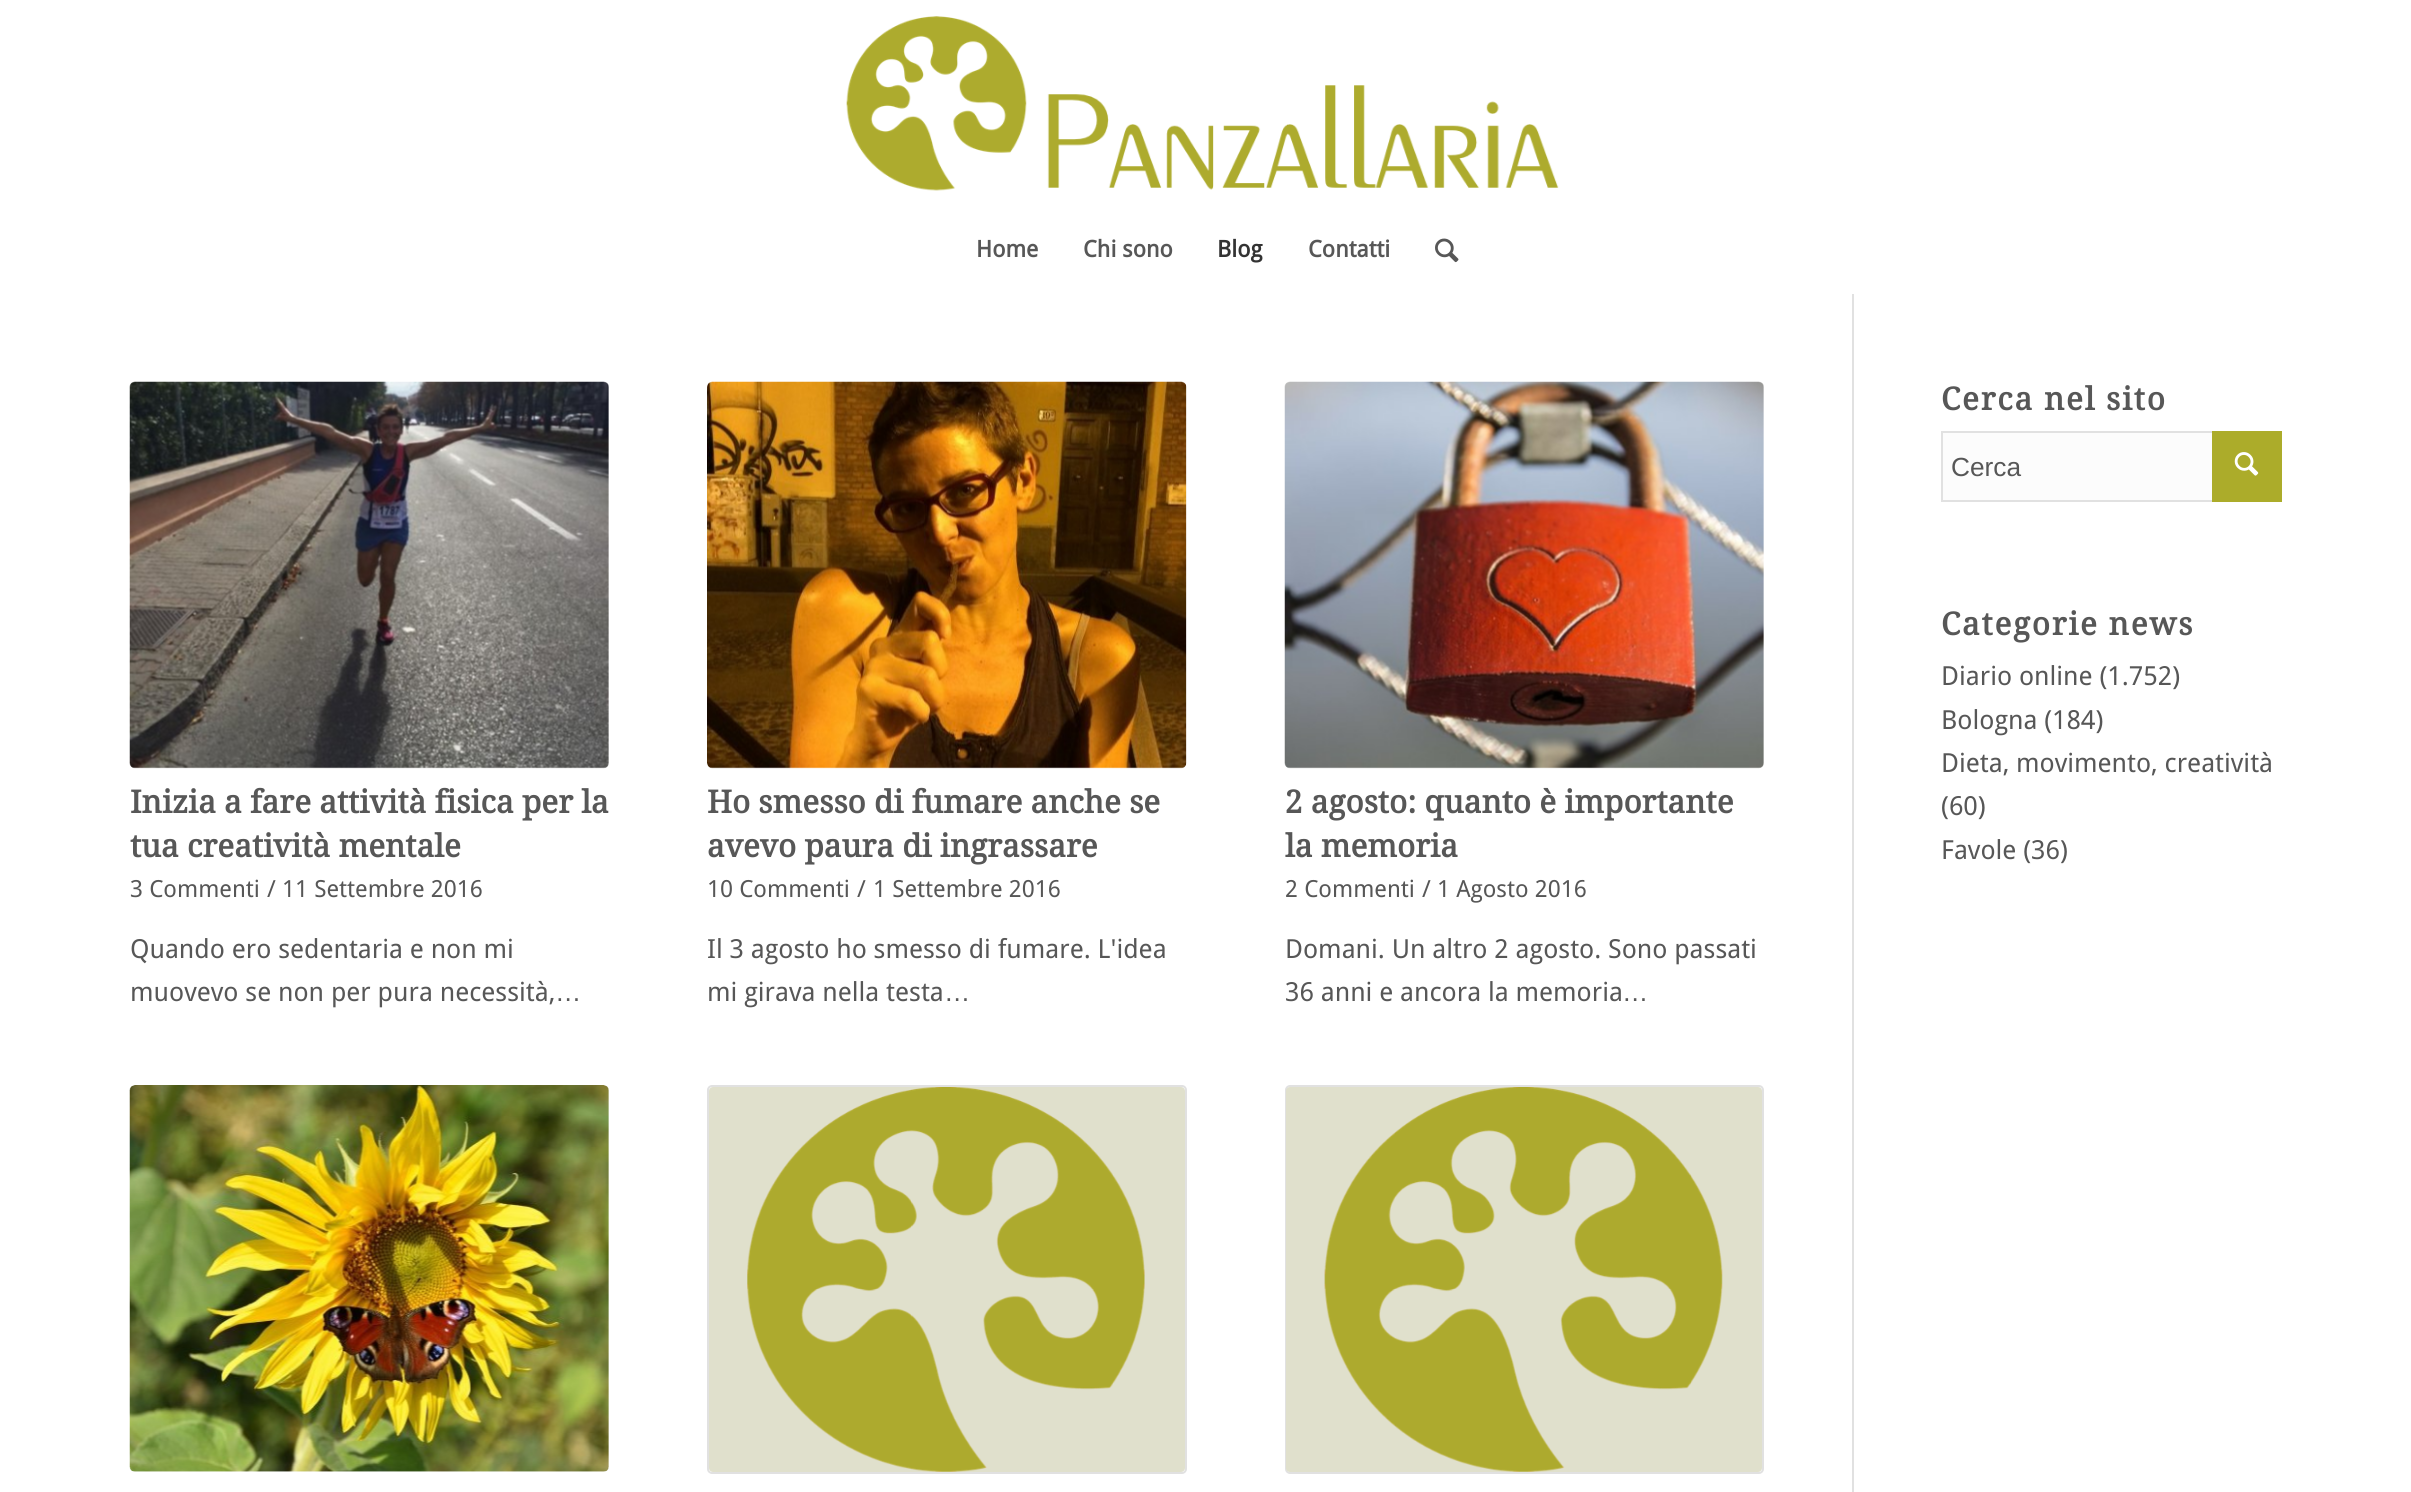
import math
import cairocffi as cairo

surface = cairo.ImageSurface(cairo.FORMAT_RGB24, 2411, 1492)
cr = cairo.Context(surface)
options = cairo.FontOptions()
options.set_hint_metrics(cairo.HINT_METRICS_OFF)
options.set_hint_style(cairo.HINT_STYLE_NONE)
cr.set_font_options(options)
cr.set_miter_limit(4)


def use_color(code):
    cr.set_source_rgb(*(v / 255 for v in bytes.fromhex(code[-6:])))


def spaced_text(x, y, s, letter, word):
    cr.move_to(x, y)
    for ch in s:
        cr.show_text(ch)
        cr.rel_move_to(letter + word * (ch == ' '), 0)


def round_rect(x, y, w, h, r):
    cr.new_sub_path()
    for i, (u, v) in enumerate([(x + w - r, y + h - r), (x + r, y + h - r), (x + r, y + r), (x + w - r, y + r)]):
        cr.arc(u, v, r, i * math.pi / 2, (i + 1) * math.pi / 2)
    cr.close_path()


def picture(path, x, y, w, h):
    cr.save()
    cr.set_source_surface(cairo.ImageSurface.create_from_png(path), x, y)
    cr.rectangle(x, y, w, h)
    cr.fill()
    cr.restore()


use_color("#ffffff")
cr.paint()
picture("img1.png", 846, 16, 713, 175)
cr.select_font_face("Droid Sans", cairo.FONT_SLANT_NORMAL, cairo.FONT_WEIGHT_BOLD)
cr.set_font_size(23)
use_color("#575757")
cr.move_to(976, 257)
cr.show_text("Home")
cr.move_to(1083, 257)
cr.show_text("Chi sono")
use_color("#333333")
cr.move_to(1217, 257)
cr.show_text("Blog")
use_color("#575757")
cr.move_to(1308, 257)
cr.show_text("Contatti")
picture("img2.png", 1435, 238, 24, 25)
cr.select_font_face("Droid Serif", cairo.FONT_SLANT_NORMAL, cairo.FONT_WEIGHT_BOLD)
cr.set_font_size(31.5)
spaced_text(1941, 410, "Cerca nel sito", 1.75, 0)
use_color("#fcfcfc")
cr.rectangle(1943, 433, 269, 67)
cr.fill()
cr.rectangle(1942, 432, 339, 69)
use_color("#e1e1e1")
cr.stroke()
cr.select_font_face("Liberation Sans")
cr.set_font_size(26.25)
use_color("#575757")
cr.move_to(1951, 476)
cr.show_text("Cerca")
use_color("#acac2a")
cr.rectangle(2212, 431, 70, 71)
cr.fill()
picture("img3.png", 2234, 452, 25, 24)
cr.select_font_face("Droid Serif", cairo.FONT_SLANT_NORMAL, cairo.FONT_WEIGHT_BOLD)
cr.set_font_size(31.5)
use_color("#575757")
spaced_text(1941, 635, "Categorie news", 1.75, 0)
cr.select_font_face("Droid Sans")
cr.set_font_size(26.25)
cr.move_to(1941, 685)
cr.show_text("Diario online (1.752)")
cr.move_to(1941, 729)
cr.show_text("Bologna (184)")
cr.move_to(1941, 772)
cr.show_text("Dieta, movimento, creatività")
cr.move_to(1941, 815)
cr.show_text("(60)")
cr.move_to(1941, 859)
cr.show_text("Favole (36)")
use_color("#e1e1e1")
cr.rectangle(1852, 294, 2, 1198)
cr.fill()
use_color("#fcfcfc")
round_rect(130, 382, 479, 386, 5)
cr.fill()
picture("img4.png", 129, 381, 480, 388)
cr.select_font_face("Droid Serif", cairo.FONT_SLANT_NORMAL, cairo.FONT_WEIGHT_BOLD)
cr.set_font_size(31.5)
use_color("#575757")
cr.move_to(130, 813)
cr.show_text("Inizia a fare attività fisica per la")
cr.move_to(130, 857)
cr.show_text("tua creatività mentale")
cr.select_font_face("Droid Sans")
cr.set_font_size(23.6)
cr.move_to(130, 897)
cr.show_text("3 Commenti")
cr.move_to(267, 897)
cr.show_text("/")
cr.move_to(282, 897)
cr.show_text("11 Settembre 2016")
cr.set_font_size(26.25)
cr.move_to(130, 958)
cr.show_text("Quando ero sedentaria e non mi")
cr.move_to(130, 1001)
cr.show_text("muovevo se non per pura necessità,")
cr.select_font_face("Liberation Sans")
cr.move_to(555, 1001)
cr.show_text("…")
use_color("#fcfcfc")
round_rect(707, 382, 480, 386, 5)
cr.fill()
picture("img5.png", 707, 381, 480, 388)
cr.select_font_face("Droid Serif", cairo.FONT_SLANT_NORMAL, cairo.FONT_WEIGHT_BOLD)
cr.set_font_size(31.5)
use_color("#575757")
cr.move_to(707, 813)
cr.show_text("Ho smesso di fumare anche se")
cr.move_to(707, 857)
cr.show_text("avevo paura di ingrassare")
cr.select_font_face("Droid Sans")
cr.set_font_size(23.6)
cr.move_to(707, 897)
cr.show_text("10 Commenti")
cr.move_to(857, 897)
cr.show_text("/")
cr.move_to(873, 897)
cr.show_text("1 Settembre 2016")
cr.set_font_size(26.25)
cr.move_to(707, 958)
cr.show_text("Il 3 agosto ho smesso di fumare. L'idea")
cr.move_to(707, 1001)
cr.show_text("mi girava nella testa")
cr.select_font_face("Liberation Sans")
cr.move_to(944, 1001)
cr.show_text("…")
use_color("#fcfcfc")
round_rect(1285, 382, 479, 386, 5)
cr.fill()
picture("img6.png", 1284, 381, 480, 388)
cr.select_font_face("Droid Serif", cairo.FONT_SLANT_NORMAL, cairo.FONT_WEIGHT_BOLD)
cr.set_font_size(31.5)
use_color("#575757")
cr.move_to(1285, 813)
cr.show_text("2 agosto: quanto è importante")
cr.move_to(1285, 857)
cr.show_text("la memoria")
cr.select_font_face("Droid Sans")
cr.set_font_size(23.6)
cr.move_to(1285, 897)
cr.show_text("2 Commenti")
cr.move_to(1422, 897)
cr.show_text("/")
cr.move_to(1437, 897)
cr.show_text("1 Agosto 2016")
cr.set_font_size(26.25)
cr.move_to(1285, 958)
cr.show_text("Domani. Un altro 2 agosto. Sono passati")
cr.move_to(1285, 1001)
cr.show_text("36 anni e ancora la memoria")
cr.select_font_face("Liberation Sans")
cr.move_to(1622, 1001)
cr.show_text("…")
use_color("#fcfcfc")
round_rect(130, 1085, 479, 387, 5)
cr.fill()
picture("img7.png", 129, 1085, 480, 387)
round_rect(708, 1086, 478, 387, 4)
cr.fill_preserve()
use_color("#e1e1e1")
cr.stroke()
use_color("#e0e0cc")
round_rect(709, 1087, 476, 385, 4)
cr.fill()
picture("img8.png", 747, 1087, 398, 385)
use_color("#fcfcfc")
round_rect(1286, 1086, 477, 387, 4)
cr.fill_preserve()
use_color("#e1e1e1")
cr.stroke()
use_color("#e0e0cc")
round_rect(1286, 1087, 476, 385, 4)
cr.fill()
picture("img9.png", 1324, 1087, 399, 385)
surface.write_to_png("result.png")
